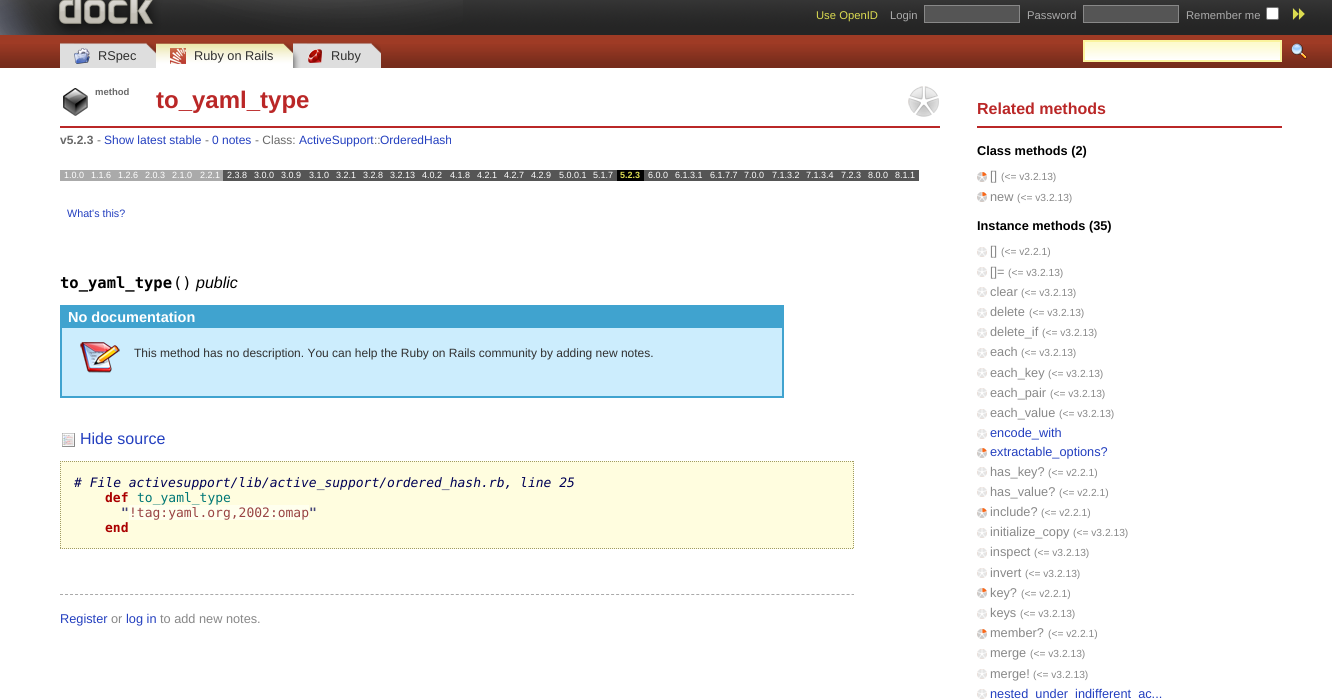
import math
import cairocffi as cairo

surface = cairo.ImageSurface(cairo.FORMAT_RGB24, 1332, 699)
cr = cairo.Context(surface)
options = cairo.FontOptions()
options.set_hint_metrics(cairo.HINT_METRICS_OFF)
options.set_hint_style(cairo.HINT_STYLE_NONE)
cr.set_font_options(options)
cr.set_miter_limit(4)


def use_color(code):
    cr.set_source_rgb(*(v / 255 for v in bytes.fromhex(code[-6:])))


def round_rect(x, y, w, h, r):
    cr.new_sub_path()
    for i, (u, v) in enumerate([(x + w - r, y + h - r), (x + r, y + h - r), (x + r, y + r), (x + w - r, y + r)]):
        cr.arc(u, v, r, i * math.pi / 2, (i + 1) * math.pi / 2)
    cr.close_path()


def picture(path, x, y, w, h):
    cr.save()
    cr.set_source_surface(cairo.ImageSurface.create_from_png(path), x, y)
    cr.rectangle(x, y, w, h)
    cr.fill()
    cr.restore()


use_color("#ffffff")
cr.paint()
picture("img1.png", 0, 0, 1332, 35)
picture("img2.png", 0, 0, 463, 35)
cr.select_font_face("Liberation Sans")
cr.set_font_size(11.25)
use_color("#dbdb51")
cr.move_to(816, 19)
cr.show_text("Use OpenID")
use_color("#aaaaaa")
cr.move_to(890, 19)
cr.show_text("Login")
use_color("#555555")
cr.rectangle(924.5, 5.5, 95, 17)
cr.fill_preserve()
use_color("#888888")
cr.set_line_width(1)
cr.stroke()
use_color("#aaaaaa")
cr.move_to(1027, 19)
cr.show_text("Password")
use_color("#555555")
cr.rectangle(1083.5, 5.5, 95, 17)
cr.fill_preserve()
use_color("#888888")
cr.stroke()
use_color("#aaaaaa")
cr.move_to(1186, 19)
cr.show_text("Remember me")
use_color("#ffffff")
round_rect(1266.5, 7.5, 12, 12, 1.5)
cr.fill_preserve()
use_color("#767676")
cr.stroke()
picture("img3.png", 1292, 8, 13, 12)
use_color("#9f3b25")
cr.rectangle(0, 35, 1332, 33)
cr.fill()
picture("img4.png", 0, 44, 1332, 24)
picture("img5.png", 60, 42, 96, 26)
use_color("#b98c82")
cr.rectangle(60, 43, 14, 1)
cr.fill()
picture("img6.png", 74, 48, 16, 16)
cr.set_font_size(12.75)
use_color("#303030")
cr.move_to(98, 60)
cr.show_text("RSpec")
picture("img7.png", 156, 42, 137, 26)
use_color("#ae6b49")
cr.rectangle(156, 43, 14, 1)
cr.fill()
picture("img8.png", 170, 48, 16, 16)
use_color("#303030")
cr.move_to(194, 60)
cr.show_text("Ruby on Rails")
picture("img9.png", 293, 42, 88, 26)
picture("img10.png", 293, 43, 14, 25)
picture("img11.png", 308, 49, 14, 14)
cr.move_to(331, 60)
cr.show_text("Ruby")
use_color("#ffffff")
cr.rectangle(1085, 59, 195, 1)
cr.fill()
picture("img12.png", 1085, 42, 195, 17)
cr.rectangle(1084, 41, 197, 20)
use_color("#faf39d")
cr.set_line_width(2)
cr.stroke()
picture("img13.png", 1291, 43, 16, 16)
use_color("#ba2727")
cr.rectangle(60, 126, 880, 2)
cr.fill()
picture("img14.png", 63, 88, 25, 28)
cr.select_font_face("Liberation Sans", cairo.FONT_SLANT_NORMAL, cairo.FONT_WEIGHT_BOLD)
cr.set_font_size(9.5)
use_color("#696969")
cr.move_to(95, 95)
cr.show_text("method")
cr.set_font_size(24)
use_color("#ba2727")
cr.move_to(156, 108)
cr.show_text("to_yaml_type")
picture("img15.png", 908, 86, 31, 31)
cr.set_font_size(12)
use_color("#696969")
cr.move_to(60, 144)
cr.show_text("v5.2.3")
cr.select_font_face("Liberation Sans")
cr.move_to(97, 144)
cr.show_text("-")
use_color("#233fbf")
cr.move_to(104, 144)
cr.show_text("Show latest stable")
use_color("#696969")
cr.move_to(205, 144)
cr.show_text("-")
use_color("#233fbf")
cr.move_to(212, 144)
cr.show_text("0 notes")
use_color("#696969")
cr.move_to(255, 144)
cr.show_text("- Class:")
use_color("#233fbf")
cr.move_to(299, 144)
cr.show_text("ActiveSupport")
use_color("#696969")
cr.move_to(374, 144)
cr.show_text("::")
use_color("#233fbf")
cr.move_to(380, 144)
cr.show_text("OrderedHash")
use_color("#aaaaaa")
cr.rectangle(60, 170, 163, 11)
cr.fill()
cr.set_font_size(9)
use_color("#ffffff")
cr.move_to(64, 178)
cr.show_text("1.0.0")
cr.move_to(91, 178)
cr.show_text("1.1.6")
cr.move_to(118, 178)
cr.show_text("1.2.6")
cr.move_to(145, 178)
cr.show_text("2.0.3")
cr.move_to(172, 178)
cr.show_text("2.1.0")
cr.move_to(200, 178)
cr.show_text("2.2.1")
use_color("#555555")
cr.rectangle(223, 170, 394, 11)
cr.fill()
use_color("#ffffff")
cr.move_to(227, 178)
cr.show_text("2.3.8")
cr.move_to(254, 178)
cr.show_text("3.0.0")
cr.move_to(281, 178)
cr.show_text("3.0.9")
cr.move_to(309, 178)
cr.show_text("3.1.0")
cr.move_to(336, 178)
cr.show_text("3.2.1")
cr.move_to(363, 178)
cr.show_text("3.2.8")
cr.move_to(390, 178)
cr.show_text("3.2.13")
cr.move_to(422, 178)
cr.show_text("4.0.2")
cr.move_to(450, 178)
cr.show_text("4.1.8")
cr.move_to(477, 178)
cr.show_text("4.2.1")
cr.move_to(504, 178)
cr.show_text("4.2.7")
cr.move_to(531, 178)
cr.show_text("4.2.9")
cr.move_to(559, 178)
cr.show_text("5.0.0.1")
cr.move_to(593, 178)
cr.show_text("5.1.7")
use_color("#000000")
cr.rectangle(617, 170, 27, 11)
cr.fill()
cr.select_font_face("Liberation Sans", cairo.FONT_SLANT_NORMAL, cairo.FONT_WEIGHT_BOLD)
use_color("#dbdb51")
cr.move_to(620, 178)
cr.show_text("5.2.3")
use_color("#555555")
cr.rectangle(644, 170, 275, 11)
cr.fill()
cr.select_font_face("Liberation Sans")
use_color("#ffffff")
cr.move_to(648, 178)
cr.show_text("6.0.0")
cr.move_to(675, 178)
cr.show_text("6.1.3.1")
cr.move_to(710, 178)
cr.show_text("6.1.7.7")
cr.move_to(744, 178)
cr.show_text("7.0.0")
cr.move_to(772, 178)
cr.show_text("7.1.3.2")
cr.move_to(806, 178)
cr.show_text("7.1.3.4")
cr.move_to(841, 178)
cr.show_text("7.2.3")
cr.move_to(868, 178)
cr.show_text("8.0.0")
cr.move_to(895, 178)
cr.show_text("8.1.1")
cr.set_font_size(10.75)
use_color("#233fbf")
cr.move_to(67, 217)
cr.show_text("What's this?")
use_color("#ba2727")
cr.rectangle(977, 126, 305, 2)
cr.fill()
cr.select_font_face("Liberation Sans", cairo.FONT_SLANT_NORMAL, cairo.FONT_WEIGHT_BOLD)
cr.set_font_size(16)
cr.move_to(977, 114)
cr.show_text("Related methods")
cr.set_font_size(12.75)
use_color("#000000")
cr.move_to(977, 155)
cr.show_text("Class methods (2)")
picture("img16.png", 977, 172, 10, 10)
cr.select_font_face("Liberation Sans")
use_color("#888888")
cr.move_to(990, 180)
cr.show_text("[]")
cr.set_font_size(10.25)
cr.move_to(1001, 180)
cr.show_text("(<= v3.2.13)")
picture("img16.png", 977, 192, 10, 10)
cr.set_font_size(12.75)
cr.move_to(990, 201)
cr.show_text("new")
cr.set_font_size(10.25)
cr.move_to(1017, 201)
cr.show_text("(<= v3.2.13)")
cr.select_font_face("Liberation Sans", cairo.FONT_SLANT_NORMAL, cairo.FONT_WEIGHT_BOLD)
cr.set_font_size(12.75)
use_color("#000000")
cr.move_to(977, 230)
cr.show_text("Instance methods (35)")
picture("img17.png", 977, 247, 10, 10)
cr.select_font_face("Liberation Sans")
use_color("#888888")
cr.move_to(990, 255)
cr.show_text("[]")
cr.set_font_size(10.25)
cr.move_to(1001, 255)
cr.show_text("(<= v2.2.1)")
picture("img17.png", 977, 267, 10, 10)
cr.set_font_size(12.75)
cr.move_to(990, 276)
cr.show_text("[]=")
cr.set_font_size(10.25)
cr.move_to(1008, 276)
cr.show_text("(<= v3.2.13)")
picture("img17.png", 977, 287, 10, 10)
cr.set_font_size(12.75)
cr.move_to(990, 296)
cr.show_text("clear")
cr.set_font_size(10.25)
cr.move_to(1021, 296)
cr.show_text("(<= v3.2.13)")
picture("img17.png", 977, 308, 10, 10)
cr.set_font_size(12.75)
cr.move_to(990, 316)
cr.show_text("delete")
cr.set_font_size(10.25)
cr.move_to(1029, 316)
cr.show_text("(<= v3.2.13)")
picture("img17.png", 977, 328, 10, 10)
cr.set_font_size(12.75)
cr.move_to(990, 336)
cr.show_text("delete_if")
cr.set_font_size(10.25)
cr.move_to(1042, 336)
cr.show_text("(<= v3.2.13)")
picture("img17.png", 977, 348, 10, 10)
cr.set_font_size(12.75)
cr.move_to(990, 356)
cr.show_text("each")
cr.set_font_size(10.25)
cr.move_to(1021, 356)
cr.show_text("(<= v3.2.13)")
picture("img17.png", 977, 368, 10, 10)
cr.set_font_size(12.75)
cr.move_to(990, 377)
cr.show_text("each_key")
cr.set_font_size(10.25)
cr.move_to(1048, 377)
cr.show_text("(<= v3.2.13)")
picture("img17.png", 977, 388, 10, 10)
cr.set_font_size(12.75)
cr.move_to(990, 397)
cr.show_text("each_pair")
cr.set_font_size(10.25)
cr.move_to(1050, 397)
cr.show_text("(<= v3.2.13)")
picture("img17.png", 977, 409, 10, 10)
cr.set_font_size(12.75)
cr.move_to(990, 417)
cr.show_text("each_value")
cr.set_font_size(10.25)
cr.move_to(1059, 417)
cr.show_text("(<= v3.2.13)")
picture("img17.png", 977, 429, 10, 10)
cr.set_font_size(12.75)
use_color("#233fbf")
cr.move_to(990, 437)
cr.show_text("encode_with")
picture("img16.png", 977, 448, 10, 10)
cr.move_to(990, 456)
cr.show_text("extractable_options?")
picture("img17.png", 977, 467, 10, 10)
use_color("#888888")
cr.move_to(990, 476)
cr.show_text("has_key?")
cr.set_font_size(10.25)
cr.move_to(1048, 476)
cr.show_text("(<= v2.2.1)")
picture("img17.png", 977, 487, 10, 10)
cr.set_font_size(12.75)
cr.move_to(990, 496)
cr.show_text("has_value?")
cr.set_font_size(10.25)
cr.move_to(1059, 496)
cr.show_text("(<= v2.2.1)")
picture("img16.png", 977, 508, 10, 10)
cr.set_font_size(12.75)
cr.move_to(990, 516)
cr.show_text("include?")
cr.set_font_size(10.25)
cr.move_to(1041, 516)
cr.show_text("(<= v2.2.1)")
picture("img17.png", 977, 528, 10, 10)
cr.set_font_size(12.75)
cr.move_to(990, 536)
cr.show_text("initialize_copy")
cr.set_font_size(10.25)
cr.move_to(1073, 536)
cr.show_text("(<= v3.2.13)")
picture("img17.png", 977, 548, 10, 10)
cr.set_font_size(12.75)
cr.move_to(990, 556)
cr.show_text("inspect")
cr.set_font_size(10.25)
cr.move_to(1034, 556)
cr.show_text("(<= v3.2.13)")
picture("img17.png", 977, 568, 10, 10)
cr.set_font_size(12.75)
cr.move_to(990, 577)
cr.show_text("invert")
cr.set_font_size(10.25)
cr.move_to(1025, 577)
cr.show_text("(<= v3.2.13)")
picture("img16.png", 977, 588, 10, 10)
cr.set_font_size(12.75)
cr.move_to(990, 597)
cr.show_text("key?")
cr.set_font_size(10.25)
cr.move_to(1021, 597)
cr.show_text("(<= v2.2.1)")
picture("img17.png", 977, 609, 10, 10)
cr.set_font_size(12.75)
cr.move_to(990, 617)
cr.show_text("keys")
cr.set_font_size(10.25)
cr.move_to(1020, 617)
cr.show_text("(<= v3.2.13)")
picture("img16.png", 977, 629, 10, 10)
cr.set_font_size(12.75)
cr.move_to(990, 637)
cr.show_text("member?")
cr.set_font_size(10.25)
cr.move_to(1048, 637)
cr.show_text("(<= v2.2.1)")
picture("img17.png", 977, 649, 10, 10)
cr.set_font_size(12.75)
cr.move_to(990, 657)
cr.show_text("merge")
cr.set_font_size(10.25)
cr.move_to(1030, 657)
cr.show_text("(<= v3.2.13)")
picture("img17.png", 977, 669, 10, 10)
cr.set_font_size(12.75)
cr.move_to(990, 678)
cr.show_text("merge!")
cr.set_font_size(10.25)
cr.move_to(1033, 678)
cr.show_text("(<= v3.2.13)")
picture("img17.png", 977, 689, 10, 10)
cr.set_font_size(12.75)
use_color("#233fbf")
cr.move_to(990, 698)
cr.show_text("nested_under_indifferent_ac...")
cr.select_font_face("DejaVu Sans Mono", cairo.FONT_SLANT_NORMAL, cairo.FONT_WEIGHT_BOLD)
cr.set_font_size(15.5)
use_color("#000000")
cr.move_to(60, 288)
cr.show_text("to_yaml_type")
cr.select_font_face("DejaVu Sans Mono")
cr.move_to(173, 288)
cr.show_text("()")
cr.select_font_face("Liberation Sans", cairo.FONT_SLANT_ITALIC)
cr.set_font_size(16)
cr.move_to(196, 288)
cr.show_text("public")
use_color("#ccedfd")
cr.rectangle(62, 328, 720, 68)
cr.fill()
picture("img18.png", 80, 342, 40, 31)
use_color("#40a3cf")
cr.rectangle(60, 305, 724, 1)
cr.fill()
cr.rectangle(782, 305, 2, 93)
cr.fill()
cr.rectangle(60, 396, 724, 2)
cr.fill()
cr.rectangle(60, 305, 2, 93)
cr.fill()
cr.rectangle(62, 306, 720, 22)
cr.fill()
cr.select_font_face("Liberation Sans", cairo.FONT_SLANT_NORMAL, cairo.FONT_WEIGHT_BOLD)
cr.set_font_size(14.5)
use_color("#ffffff")
cr.move_to(68, 322)
cr.show_text("No documentation")
cr.select_font_face("Liberation Sans")
cr.set_font_size(12)
use_color("#303030")
cr.move_to(134, 357)
cr.show_text("This method has no description. You can help the Ruby on Rails community by adding new notes.")
picture("img19.png", 62, 433, 13, 14)
cr.set_font_size(16)
use_color("#233fbf")
cr.move_to(80, 444)
cr.show_text("Hide source")
use_color("#fffddf")
cr.rectangle(60, 461, 794, 88)
cr.fill()
cr.new_path()
cr.move_to(60, 461.5)
cr.line_to(854, 461.5)
use_color("#9f9b63")
cr.set_line_width(1)
cr.set_dash([1, 1])
cr.stroke()
cr.new_path()
cr.move_to(853.5, 461)
cr.line_to(853.5, 549)
cr.stroke()
cr.new_path()
cr.move_to(60, 548.5)
cr.line_to(854, 548.5)
cr.stroke()
cr.new_path()
cr.move_to(60.5, 461)
cr.line_to(60.5, 549)
cr.stroke()
cr.select_font_face("DejaVu Sans Mono", cairo.FONT_SLANT_ITALIC)
cr.set_font_size(13)
use_color("#000055")
cr.move_to(74, 487)
cr.show_text("# File activesupport/lib/active_support/ordered_hash.rb, line 25")
cr.select_font_face("DejaVu Sans Mono", cairo.FONT_SLANT_NORMAL, cairo.FONT_WEIGHT_BOLD)
use_color("#aa0000")
cr.move_to(105, 502)
cr.show_text("def")
cr.select_font_face("DejaVu Sans Mono")
use_color("#007777")
cr.move_to(137, 502)
cr.show_text("to_yaml_type")
cr.select_font_face("DejaVu Sans Mono", cairo.FONT_SLANT_NORMAL, cairo.FONT_WEIGHT_BOLD)
use_color("#444477")
cr.move_to(121, 517)
cr.show_text("\"")
use_color("#ffffee")
cr.rectangle(129, 505, 180, 15)
cr.fill()
cr.select_font_face("DejaVu Sans Mono")
use_color("#994444")
cr.move_to(129, 517)
cr.show_text("!tag:yaml.org,2002:omap")
cr.select_font_face("DejaVu Sans Mono", cairo.FONT_SLANT_NORMAL, cairo.FONT_WEIGHT_BOLD)
use_color("#444477")
cr.move_to(309, 517)
cr.show_text("\"")
use_color("#aa0000")
cr.move_to(105, 532)
cr.show_text("end")
cr.new_path()
cr.move_to(60, 594.5)
cr.line_to(854, 594.5)
use_color("#aaaaaa")
cr.set_dash([3, 2.01])
cr.stroke()
cr.select_font_face("Liberation Sans")
cr.set_font_size(12.75)
use_color("#233fbf")
cr.move_to(60, 623)
cr.show_text("Register")
use_color("#888888")
cr.move_to(111, 623)
cr.show_text("or")
use_color("#233fbf")
cr.move_to(126, 623)
cr.show_text("log in")
use_color("#888888")
cr.move_to(160, 623)
cr.show_text("to add new notes.")
surface.write_to_png("result.png")
